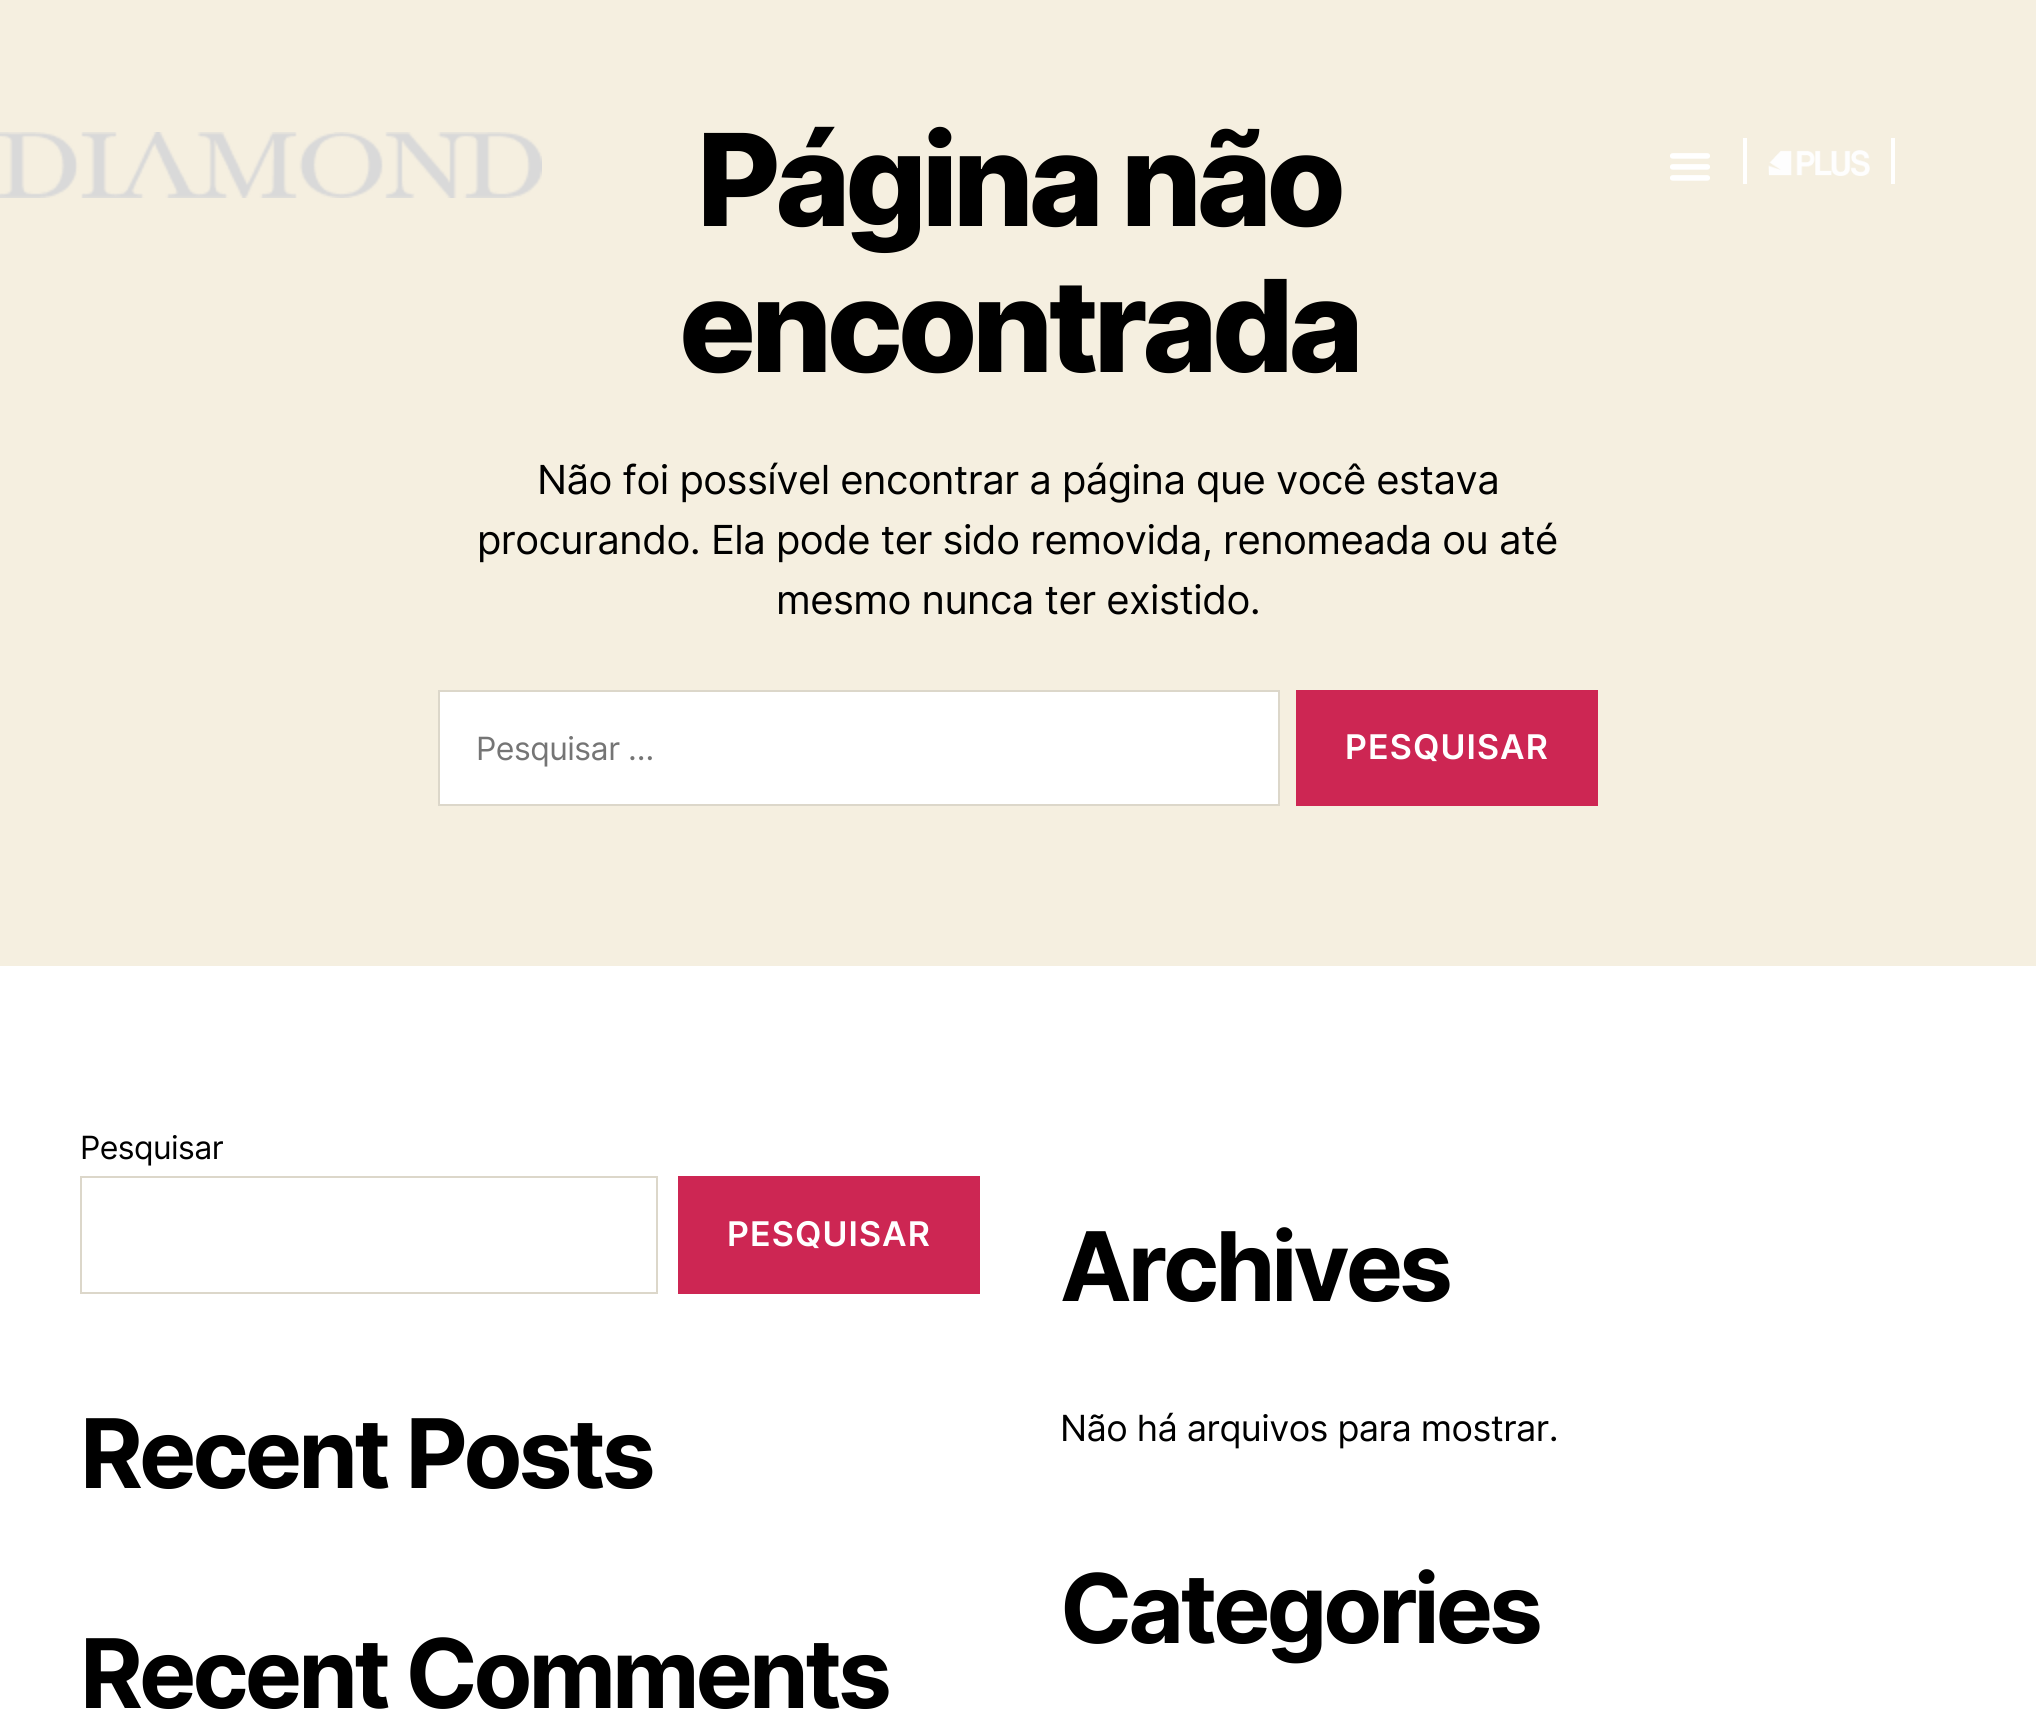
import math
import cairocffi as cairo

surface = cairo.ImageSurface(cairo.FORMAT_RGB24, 2036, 1732)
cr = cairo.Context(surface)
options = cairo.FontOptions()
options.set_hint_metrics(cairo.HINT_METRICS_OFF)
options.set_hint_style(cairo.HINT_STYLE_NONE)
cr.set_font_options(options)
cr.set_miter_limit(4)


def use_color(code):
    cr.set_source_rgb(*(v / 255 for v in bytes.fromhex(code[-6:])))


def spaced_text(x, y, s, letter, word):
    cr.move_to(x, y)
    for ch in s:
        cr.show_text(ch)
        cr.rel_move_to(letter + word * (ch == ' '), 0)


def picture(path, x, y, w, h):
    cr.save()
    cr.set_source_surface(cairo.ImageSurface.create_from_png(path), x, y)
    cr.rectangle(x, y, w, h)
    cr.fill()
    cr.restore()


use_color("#f5efe0")
cr.paint()
cr.select_font_face("Inter ExtraBold")
cr.set_font_size(128)
use_color("#000000")
spaced_text(697, 226, "Página não", -5.25, 0)
spaced_text(679, 372, "encontrada", -5.25, 0)
cr.select_font_face("Inter")
cr.set_font_size(40)
spaced_text(537, 494, "Não foi possível encontrar a página que você estava", -0.55, 0)
spaced_text(477, 554, "procurando. Ela pode ter sido removida, renomeada ou até", -0.55, 0)
spaced_text(776, 614, "mesmo nunca ter existido.", -0.55, 0)
use_color("#ffffff")
cr.rectangle(439, 691, 840, 114)
cr.fill_preserve()
use_color("#dcd7ca")
cr.stroke()
cr.set_font_size(32)
use_color("#757575")
spaced_text(476, 760, "Pesquisar …", -0.5, 0)
use_color("#cd2653")
cr.rectangle(1296, 690, 302, 116)
cr.fill()
cr.select_font_face("Inter SemiBold")
cr.set_font_size(34)
use_color("#ffffff")
spaced_text(1345, 759, "PESQUISAR", 1.1, 0)
picture("img1.png", 0, 132, 542, 66)
picture("img2.png", 1670, 153, 40, 28)
cr.rectangle(1743, 138, 4, 46)
cr.fill()
picture("img3.png", 1768, 150, 102, 26)
cr.rectangle(1891, 138, 4, 46)
cr.fill()
cr.rectangle(0, 966, 2036, 766)
cr.fill()
cr.select_font_face("Inter")
cr.set_font_size(32)
use_color("#000000")
spaced_text(80, 1159, "Pesquisar", -0.55, 0)
cr.rectangle(81, 1177, 576, 116)
use_color("#dcd7ca")
cr.stroke()
use_color("#cd2653")
cr.rectangle(678, 1176, 302, 118)
cr.fill()
cr.select_font_face("Inter SemiBold")
cr.set_font_size(34)
use_color("#ffffff")
spaced_text(727, 1246, "PESQUISAR", 1.1, 0)
cr.select_font_face("Inter", cairo.FONT_SLANT_NORMAL, cairo.FONT_WEIGHT_BOLD)
cr.set_font_size(96)
use_color("#000000")
spaced_text(80, 1488, "Recent Posts", -4, 0)
spaced_text(80, 1708, "Recent Comments", -4, 0)
spaced_text(1060, 1301, "Archives", -4, 0)
cr.select_font_face("Inter")
cr.set_font_size(36)
spaced_text(1060, 1441, "Não há arquivos para mostrar.", -0.55, 0)
cr.select_font_face("Inter", cairo.FONT_SLANT_NORMAL, cairo.FONT_WEIGHT_BOLD)
cr.set_font_size(96)
spaced_text(1060, 1643, "Categories", -4, 0)
surface.write_to_png("result.png")
